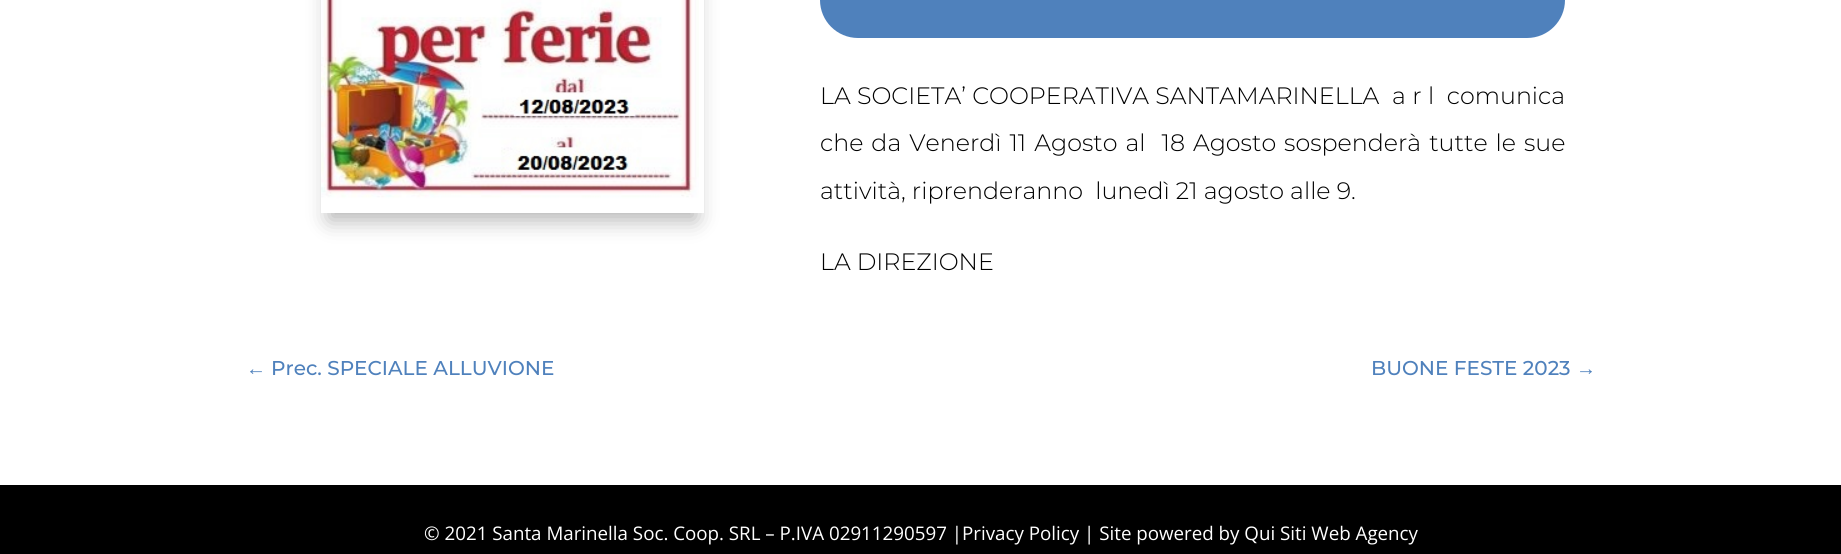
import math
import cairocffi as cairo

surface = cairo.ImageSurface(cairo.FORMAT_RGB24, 1841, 554)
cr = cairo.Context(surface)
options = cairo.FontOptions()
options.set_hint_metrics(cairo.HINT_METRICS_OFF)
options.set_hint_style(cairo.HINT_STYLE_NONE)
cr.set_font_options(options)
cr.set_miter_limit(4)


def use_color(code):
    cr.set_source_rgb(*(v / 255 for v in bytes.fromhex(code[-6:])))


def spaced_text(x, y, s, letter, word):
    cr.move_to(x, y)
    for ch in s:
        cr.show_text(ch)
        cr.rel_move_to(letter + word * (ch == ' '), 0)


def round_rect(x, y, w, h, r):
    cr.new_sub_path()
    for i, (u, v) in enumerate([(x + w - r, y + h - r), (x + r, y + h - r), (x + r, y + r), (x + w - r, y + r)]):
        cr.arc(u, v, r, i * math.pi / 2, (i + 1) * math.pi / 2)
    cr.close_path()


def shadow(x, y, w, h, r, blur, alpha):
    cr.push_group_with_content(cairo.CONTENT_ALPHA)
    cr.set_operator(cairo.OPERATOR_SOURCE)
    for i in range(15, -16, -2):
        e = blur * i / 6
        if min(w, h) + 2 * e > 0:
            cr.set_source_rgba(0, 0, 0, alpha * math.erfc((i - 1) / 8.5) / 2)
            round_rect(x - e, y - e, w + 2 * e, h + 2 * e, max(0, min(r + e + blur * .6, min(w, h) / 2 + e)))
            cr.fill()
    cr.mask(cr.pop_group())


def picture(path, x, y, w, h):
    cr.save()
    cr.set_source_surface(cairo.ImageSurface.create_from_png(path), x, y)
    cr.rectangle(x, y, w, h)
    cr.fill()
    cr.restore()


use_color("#ffffff")
cr.paint()
cr.save()
cr.set_fill_rule(cairo.FILL_RULE_EVEN_ODD)
cr.new_path()
cr.move_to(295, 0)
cr.line_to(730, 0)
cr.line_to(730, 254)
cr.line_to(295, 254)
cr.close_path()
cr.move_to(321, -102)
cr.line_to(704, -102)
cr.line_to(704, 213)
cr.line_to(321, 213)
cr.close_path()
cr.clip()
use_color("#000000")
shadow(329, -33, 367, 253, 0, 11, 0.3)
cr.restore()
picture("img1.png", 321, 0, 378, 213)
use_color("#4f81bc")
round_rect(820, -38, 745, 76, 38)
cr.fill()
cr.select_font_face("Montserrat Light")
cr.set_font_size(23.75)
use_color("#000000")
spaced_text(820, 104, "LA SOCIETA’ COOPERATIVA SANTAMARINELLA  a r l  comunica", 0, 0.25)
spaced_text(820, 151, "che da Venerdì 11 Agosto al  18 Agosto sospenderà tutte le sue", 0, 1.9)
cr.move_to(820, 199)
cr.show_text("attività, riprenderanno  lunedì 21 agosto alle 9.")
cr.move_to(820, 270)
cr.show_text("LA DIREZIONE")
cr.select_font_face("Liberation Sans")
cr.set_font_size(20)
use_color("#4f81bc")
cr.move_to(246, 375)
cr.show_text("←")
cr.select_font_face("Montserrat Medium")
cr.move_to(271, 375)
cr.show_text("Prec. SPECIALE ALLUVIONE")
cr.move_to(1371, 375)
cr.show_text("BUONE FESTE 2023")
cr.select_font_face("Liberation Sans")
cr.move_to(1576, 375)
cr.show_text("→")
use_color("#000000")
cr.rectangle(0, 485, 1841, 69)
cr.fill()
cr.select_font_face("Open Sans")
cr.set_font_size(18.75)
use_color("#ffffff")
cr.move_to(424, 540)
cr.show_text("© 2021 Santa Marinella Soc. Coop. SRL – P.IVA 02911290597 |Privacy Policy | Site powered by Qui Siti Web Agency")
surface.write_to_png("result.png")
